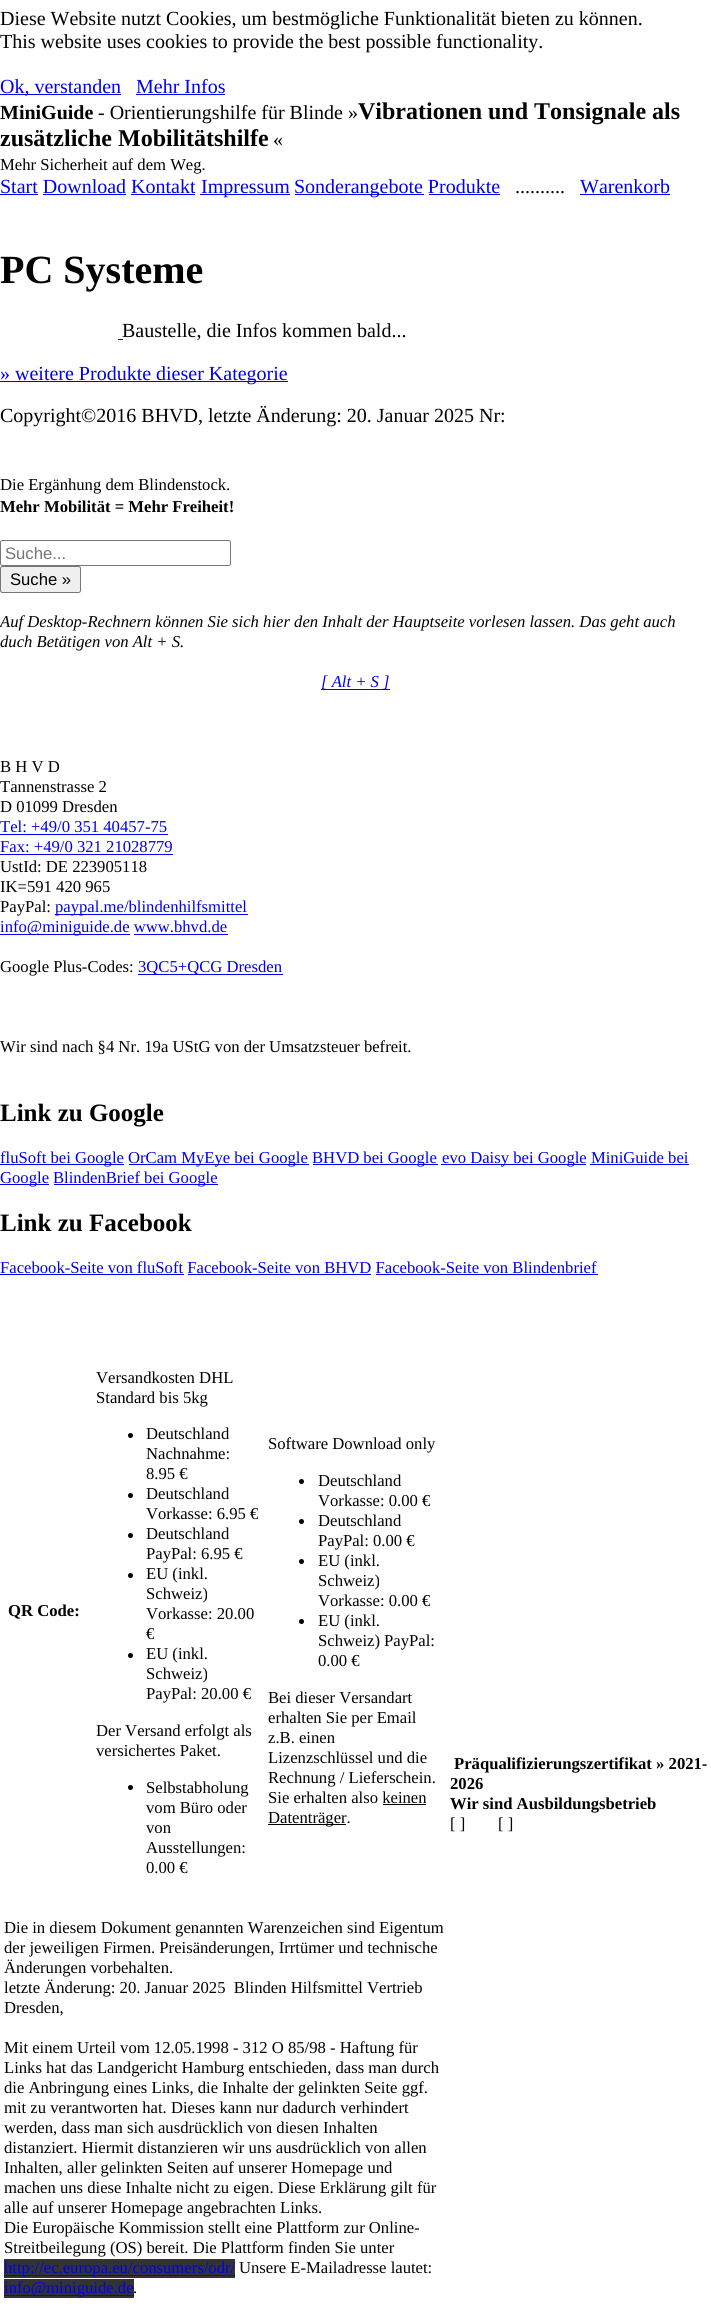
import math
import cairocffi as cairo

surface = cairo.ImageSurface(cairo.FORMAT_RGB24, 711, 2309)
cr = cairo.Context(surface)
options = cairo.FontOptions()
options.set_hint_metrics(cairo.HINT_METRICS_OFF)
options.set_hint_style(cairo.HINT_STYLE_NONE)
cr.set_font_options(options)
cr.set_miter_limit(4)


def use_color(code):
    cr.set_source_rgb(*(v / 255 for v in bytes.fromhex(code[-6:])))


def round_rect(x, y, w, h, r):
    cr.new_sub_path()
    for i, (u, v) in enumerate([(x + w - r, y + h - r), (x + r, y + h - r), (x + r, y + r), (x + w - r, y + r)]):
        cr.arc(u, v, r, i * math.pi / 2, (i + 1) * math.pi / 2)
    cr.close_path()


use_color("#ffffff")
cr.paint()
cr.select_font_face("Liberation Serif")
cr.set_font_size(20)
use_color("#000000")
cr.move_to(0, 25)
cr.show_text("Diese Website nutzt Cookies, um bestmögliche Funktionalität bieten zu können.")
cr.move_to(0, 48)
cr.show_text("This website uses cookies to provide the best possible functionality.")
use_color("#0000ee")
cr.rectangle(0, 94, 121, 1)
cr.fill()
cr.move_to(0, 93)
cr.show_text("Ok, verstanden")
cr.move_to(136, 93)
cr.show_text("Mehr Infos")
cr.rectangle(136, 94, 89, 1)
cr.fill()
cr.select_font_face("Liberation Serif", cairo.FONT_SLANT_NORMAL, cairo.FONT_WEIGHT_BOLD)
use_color("#000000")
cr.move_to(0, 119)
cr.show_text("MiniGuide")
cr.select_font_face("Liberation Serif")
cr.move_to(98, 119)
cr.show_text("- Orientierungshilfe für Blinde »")
cr.select_font_face("Liberation Serif", cairo.FONT_SLANT_NORMAL, cairo.FONT_WEIGHT_BOLD)
cr.set_font_size(24)
cr.move_to(358, 119)
cr.show_text("Vibrationen und Tonsignale als")
cr.move_to(0, 146)
cr.show_text("zusätzliche Mobilitätshilfe")
cr.select_font_face("Liberation Serif")
cr.set_font_size(20)
cr.move_to(273, 146)
cr.show_text("«")
cr.set_font_size(16.65)
cr.move_to(0, 170)
cr.show_text("Mehr Sicherheit auf dem Weg.")
cr.set_font_size(20)
use_color("#0000ee")
cr.move_to(0, 193)
cr.show_text("Start Download Kontakt")
cr.rectangle(0, 194, 38, 1)
cr.fill()
cr.rectangle(200, 194, 90, 1)
cr.fill()
cr.move_to(201, 193)
cr.show_text("Impressum")
cr.rectangle(295, 194, 129, 1)
cr.fill()
cr.move_to(294, 193)
cr.show_text("Sonderangebote Produkte")
use_color("#000000")
cr.move_to(515, 193)
cr.show_text("..........")
use_color("#0000ee")
cr.move_to(580, 193)
cr.show_text("Warenkorb")
cr.rectangle(580, 194, 90, 1)
cr.fill()
cr.rectangle(43, 194, 83, 1)
cr.fill()
cr.rectangle(131, 194, 64, 1)
cr.fill()
cr.rectangle(429, 194, 71, 1)
cr.fill()
cr.select_font_face("Liberation Serif", cairo.FONT_SLANT_NORMAL, cairo.FONT_WEIGHT_BOLD)
cr.set_font_size(40)
use_color("#000000")
cr.move_to(0, 283)
cr.show_text("PC Systeme")
use_color("#0000ee")
cr.rectangle(118, 339, 5, 1)
cr.fill()
cr.select_font_face("Liberation Serif")
cr.set_font_size(20)
use_color("#000000")
cr.move_to(122, 337)
cr.show_text("Baustelle, die Infos kommen bald...")
use_color("#0000ee")
cr.rectangle(0, 381, 288, 1)
cr.fill()
cr.move_to(0, 380)
cr.show_text("» weitere Produkte dieser Kategorie")
use_color("#000000")
cr.move_to(0, 422)
cr.show_text("Copyright©2016 BHVD, letzte Änderung: 20. Januar 2025 Nr:")
cr.set_font_size(16.65)
cr.move_to(0, 490)
cr.show_text("Die Ergänhung dem Blindenstock.")
cr.select_font_face("Liberation Serif", cairo.FONT_SLANT_NORMAL, cairo.FONT_WEIGHT_BOLD)
cr.move_to(0, 512)
cr.show_text("Mehr Mobilität = Mehr Freiheit!")
round_rect(0.5, 540.5, 230, 25, 2)
use_color("#767676")
cr.set_line_width(1)
cr.stroke()
cr.select_font_face("Liberation Sans")
use_color("#757575")
cr.move_to(5, 559)
cr.show_text("Suche...")
use_color("#efefef")
round_rect(0.5, 566.5, 80, 26, 2)
cr.fill_preserve()
use_color("#767676")
cr.stroke()
use_color("#000000")
cr.move_to(10, 585)
cr.show_text("Suche »")
cr.select_font_face("Liberation Serif", cairo.FONT_SLANT_ITALIC)
cr.move_to(0, 627)
cr.show_text("Auf Desktop-Rechnern können Sie sich hier den Inhalt der Hauptseite vorlesen lassen. Das geht auch")
cr.move_to(0, 647)
cr.show_text("duch Betätigen von Alt + S.")
use_color("#0000ee")
cr.rectangle(321, 689, 69, 1)
cr.fill()
cr.move_to(321, 687)
cr.show_text("[ Alt + S ]")
cr.select_font_face("Liberation Serif")
use_color("#000000")
cr.move_to(0, 772)
cr.show_text("B H V D")
cr.move_to(0, 792)
cr.show_text("Tannenstrasse 2")
cr.move_to(0, 812)
cr.show_text("D 01099 Dresden")
use_color("#0000ee")
cr.move_to(0, 832)
cr.show_text("Tel: +49/0 351 40457-75")
cr.rectangle(0, 834, 168, 1)
cr.fill()
cr.move_to(0, 852)
cr.show_text("Fax: +49/0 321 21028779")
cr.rectangle(0, 854, 173, 1)
cr.fill()
use_color("#000000")
cr.move_to(0, 872)
cr.show_text("UstId: DE 223905118")
cr.move_to(0, 892)
cr.show_text("IK=591 420 965")
cr.move_to(0, 912)
cr.show_text("PayPal:")
use_color("#0000ee")
cr.rectangle(55, 914, 193, 1)
cr.fill()
cr.move_to(55, 912)
cr.show_text("paypal.me/blindenhilfsmittel")
cr.rectangle(0, 934, 130, 1)
cr.fill()
cr.move_to(0, 932)
cr.show_text("info@miniguide.de www.bhvd.de")
cr.rectangle(134, 934, 94, 1)
cr.fill()
use_color("#000000")
cr.move_to(0, 972)
cr.show_text("Google Plus-Codes:")
use_color("#0000ee")
cr.rectangle(138, 974, 145, 1)
cr.fill()
cr.move_to(138, 972)
cr.show_text("3QC5+QCG Dresden")
use_color("#000000")
cr.move_to(0, 1052)
cr.show_text("Wir sind nach §4 Nr. 19a UStG von der Umsatzsteuer befreit.")
cr.select_font_face("Liberation Serif", cairo.FONT_SLANT_NORMAL, cairo.FONT_WEIGHT_BOLD)
cr.set_font_size(25)
cr.move_to(0, 1121)
cr.show_text("Link zu Google")
use_color("#0000ee")
cr.rectangle(0, 1164, 124, 1)
cr.fill()
cr.select_font_face("Liberation Serif")
cr.set_font_size(16.65)
cr.move_to(0, 1163)
cr.show_text("fluSoft bei Google")
cr.rectangle(129, 1164, 180, 1)
cr.fill()
cr.move_to(128, 1163)
cr.show_text("OrCam MyEye bei Google")
cr.rectangle(313, 1164, 125, 1)
cr.fill()
cr.move_to(312, 1163)
cr.show_text("BHVD bei Google")
cr.rectangle(441, 1164, 145, 1)
cr.fill()
cr.move_to(442, 1163)
cr.show_text("evo Daisy bei Google MiniGuide bei")
cr.rectangle(0, 1184, 49, 1)
cr.fill()
cr.move_to(0, 1183)
cr.show_text("Google")
cr.rectangle(590, 1164, 99, 1)
cr.fill()
cr.rectangle(54, 1184, 164, 1)
cr.fill()
cr.move_to(53, 1183)
cr.show_text("BlindenBrief bei Google")
cr.select_font_face("Liberation Serif", cairo.FONT_SLANT_NORMAL, cairo.FONT_WEIGHT_BOLD)
cr.set_font_size(25)
use_color("#000000")
cr.move_to(0, 1231)
cr.show_text("Link zu Facebook")
cr.select_font_face("Liberation Serif")
cr.set_font_size(16.65)
use_color("#0000ee")
cr.move_to(0, 1273)
cr.show_text("Facebook-Seite von fluSoft Facebook-Seite von BHVD Facebook-Seite von Blindenbrief")
cr.rectangle(0, 1274, 184, 1)
cr.fill()
cr.rectangle(188, 1274, 183, 1)
cr.fill()
cr.rectangle(376, 1274, 222, 1)
cr.fill()
cr.select_font_face("Liberation Serif", cairo.FONT_SLANT_NORMAL, cairo.FONT_WEIGHT_BOLD)
use_color("#000000")
cr.move_to(8, 1616)
cr.show_text("QR Code:")
cr.select_font_face("Liberation Serif")
cr.move_to(96, 1383)
cr.show_text("Versandkosten DHL")
cr.move_to(96, 1403)
cr.show_text("Standard bis 5kg")
cr.new_path()
cr.arc(130.5, 1435.5, 2.5, 0, 2 * math.pi)
cr.fill()
cr.move_to(146, 1439)
cr.show_text("Deutschland")
cr.move_to(146, 1459)
cr.show_text("Nachnahme:")
cr.move_to(146, 1479)
cr.show_text("8.95 €")
cr.new_path()
cr.arc(130.5, 1495.5, 2.5, 0, 2 * math.pi)
cr.fill()
cr.move_to(146, 1499)
cr.show_text("Deutschland")
cr.move_to(146, 1519)
cr.show_text("Vorkasse: 6.95 €")
cr.new_path()
cr.arc(130.5, 1535.5, 2.5, 0, 2 * math.pi)
cr.fill()
cr.move_to(146, 1539)
cr.show_text("Deutschland")
cr.move_to(146, 1559)
cr.show_text("PayPal: 6.95 €")
cr.new_path()
cr.arc(130.5, 1575.5, 2.5, 0, 2 * math.pi)
cr.fill()
cr.move_to(146, 1579)
cr.show_text("EU (inkl.")
cr.move_to(146, 1599)
cr.show_text("Schweiz)")
cr.move_to(146, 1619)
cr.show_text("Vorkasse: 20.00")
cr.move_to(146, 1639)
cr.show_text("€")
cr.new_path()
cr.arc(130.5, 1655.5, 2.5, 0, 2 * math.pi)
cr.fill()
cr.move_to(146, 1659)
cr.show_text("EU (inkl.")
cr.move_to(146, 1679)
cr.show_text("Schweiz)")
cr.move_to(146, 1699)
cr.show_text("PayPal: 20.00 €")
cr.move_to(96, 1736)
cr.show_text("Der Versand erfolgt als")
cr.move_to(96, 1756)
cr.show_text("versichertes Paket.")
cr.new_path()
cr.arc(130.5, 1787.5, 2.5, 0, 2 * math.pi)
cr.fill()
cr.move_to(146, 1793)
cr.show_text("Selbstabholung")
cr.move_to(146, 1813)
cr.show_text("vom Büro oder")
cr.move_to(146, 1833)
cr.show_text("von")
cr.move_to(146, 1853)
cr.show_text("Ausstellungen:")
cr.move_to(146, 1873)
cr.show_text("0.00 €")
cr.move_to(268, 1449)
cr.show_text("Software Download only")
cr.new_path()
cr.arc(301.5, 1481.5, 2.5, 0, 2 * math.pi)
cr.fill()
cr.move_to(318, 1486)
cr.show_text("Deutschland")
cr.move_to(318, 1506)
cr.show_text("Vorkasse: 0.00 €")
cr.new_path()
cr.arc(301.5, 1521.5, 2.5, 0, 2 * math.pi)
cr.fill()
cr.move_to(318, 1526)
cr.show_text("Deutschland")
cr.move_to(318, 1546)
cr.show_text("PayPal: 0.00 €")
cr.new_path()
cr.arc(301.5, 1561.5, 2.5, 0, 2 * math.pi)
cr.fill()
cr.move_to(318, 1566)
cr.show_text("EU (inkl.")
cr.move_to(318, 1586)
cr.show_text("Schweiz)")
cr.move_to(318, 1606)
cr.show_text("Vorkasse: 0.00 €")
cr.new_path()
cr.arc(301.5, 1621.5, 2.5, 0, 2 * math.pi)
cr.fill()
cr.move_to(318, 1626)
cr.show_text("EU (inkl.")
cr.move_to(318, 1646)
cr.show_text("Schweiz) PayPal:")
cr.move_to(318, 1666)
cr.show_text("0.00 €")
cr.move_to(268, 1703)
cr.show_text("Bei dieser Versandart")
cr.move_to(268, 1723)
cr.show_text("erhalten Sie per Email")
cr.move_to(268, 1743)
cr.show_text("z.B. einen")
cr.move_to(268, 1763)
cr.show_text("Lizenzschlüssel und die")
cr.move_to(268, 1783)
cr.show_text("Rechnung / Lieferschein.")
cr.move_to(268, 1803)
cr.show_text("Sie erhalten also keinen")
cr.rectangle(268, 1824, 78, 1)
cr.fill()
cr.move_to(268, 1823)
cr.show_text("Datenträger.")
cr.rectangle(383, 1804, 43, 1)
cr.fill()
cr.move_to(4, 1933)
cr.show_text("Die in diesem Dokument genannten Warenzeichen sind Eigentum")
cr.move_to(4, 1953)
cr.show_text("der jeweiligen Firmen. Preisänderungen, Irrtümer und technische")
cr.move_to(4, 1973)
cr.show_text("Änderungen vorbehalten.")
cr.move_to(4, 1993)
cr.show_text("letzte Änderung: 20. Januar 2025  Blinden Hilfsmittel Vertrieb")
cr.move_to(4, 2013)
cr.show_text("Dresden,")
cr.move_to(4, 2053)
cr.show_text("Mit einem Urteil vom 12.05.1998 - 312 O 85/98 - Haftung für")
cr.move_to(4, 2073)
cr.show_text("Links hat das Landgericht Hamburg entschieden, dass man durch")
cr.move_to(4, 2093)
cr.show_text("die Anbringung eines Links, die Inhalte der gelinkten Seite ggf.")
cr.move_to(4, 2113)
cr.show_text("mit zu verantworten hat. Dieses kann nur dadurch verhindert")
cr.move_to(4, 2133)
cr.show_text("werden, dass man sich ausdrücklich von diesen Inhalten")
cr.move_to(4, 2153)
cr.show_text("distanziert. Hiermit distanzieren wir uns ausdrücklich von allen")
cr.move_to(4, 2173)
cr.show_text("Inhalten, aller gelinkten Seiten auf unserer Homepage und")
cr.move_to(4, 2193)
cr.show_text("machen uns diese Inhalte nicht zu eigen. Diese Erklärung gilt für")
cr.move_to(4, 2213)
cr.show_text("alle auf unserer Homepage angebrachten Links.")
cr.move_to(4, 2233)
cr.show_text("Die Europäische Kommission stellt eine Plattform zur Online-")
cr.move_to(4, 2253)
cr.show_text("Streitbeilegung (OS) bereit. Die Plattform finden Sie unter")
use_color("#333333")
cr.rectangle(4, 2259, 231, 19)
cr.fill()
use_color("#0000ee")
cr.rectangle(4, 2275, 231, 1)
cr.fill()
cr.move_to(4, 2273)
cr.show_text("http://ec.europa.eu/consumers/odr/")
use_color("#000000")
cr.move_to(239, 2273)
cr.show_text("Unsere E-Mailadresse lautet:")
use_color("#333333")
cr.rectangle(4, 2279, 130, 19)
cr.fill()
use_color("#0000ee")
cr.rectangle(4, 2295, 130, 1)
cr.fill()
cr.move_to(4, 2293)
cr.show_text("info@miniguide.de")
use_color("#000000")
cr.move_to(133, 2293)
cr.show_text(".")
cr.select_font_face("Liberation Serif", cairo.FONT_SLANT_NORMAL, cairo.FONT_WEIGHT_BOLD)
cr.move_to(454, 1769)
cr.show_text("Präqualifizierungszertifikat » 2021-")
cr.move_to(450, 1789)
cr.show_text("2026")
cr.move_to(450, 1809)
cr.show_text("Wir sind Ausbildungsbetrieb")
cr.select_font_face("Liberation Serif")
cr.move_to(450, 1829)
cr.show_text("[ ]")
cr.move_to(498, 1829)
cr.show_text("[ ]")
surface.write_to_png("result.png")
